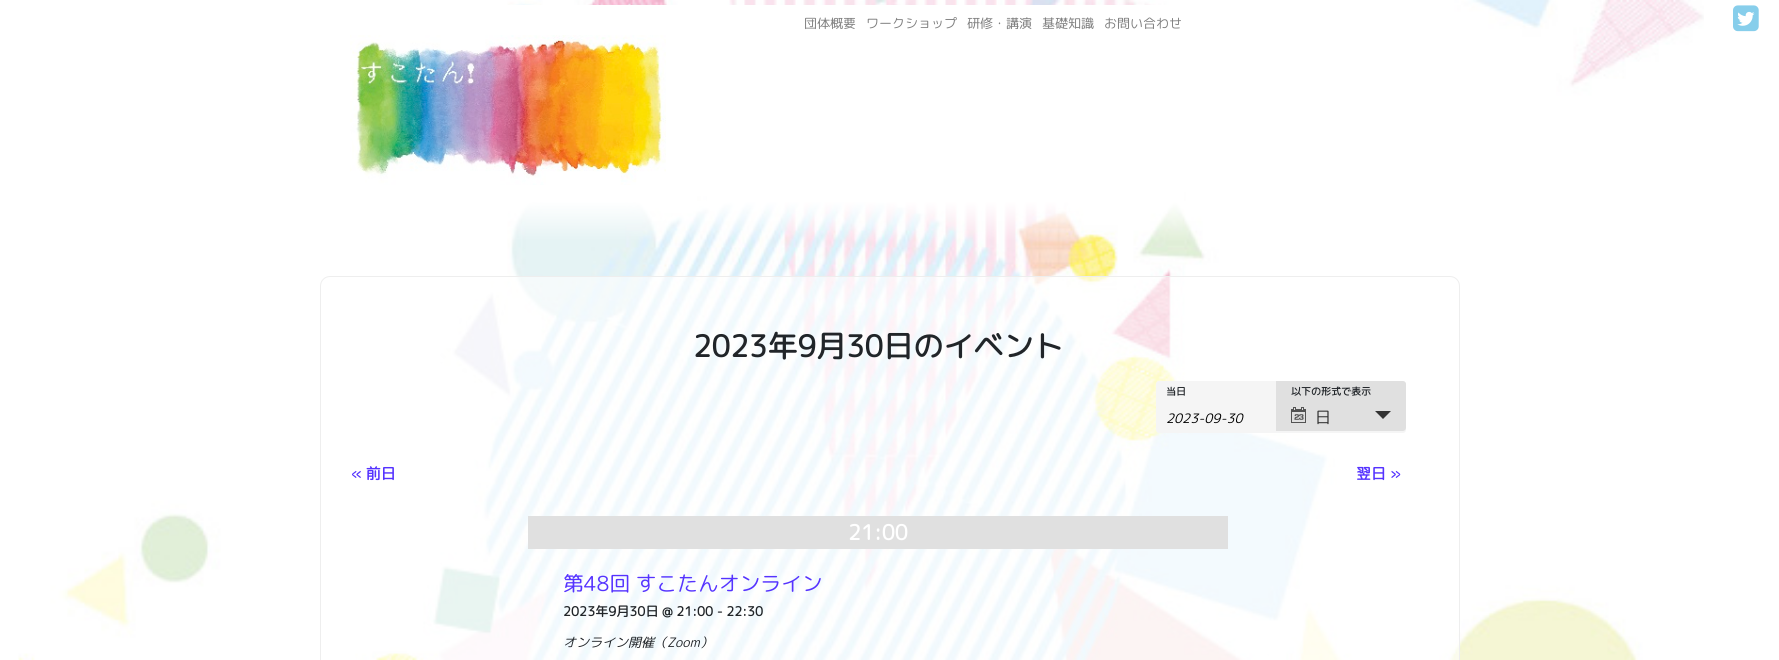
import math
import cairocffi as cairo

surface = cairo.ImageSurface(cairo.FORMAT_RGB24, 1779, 660)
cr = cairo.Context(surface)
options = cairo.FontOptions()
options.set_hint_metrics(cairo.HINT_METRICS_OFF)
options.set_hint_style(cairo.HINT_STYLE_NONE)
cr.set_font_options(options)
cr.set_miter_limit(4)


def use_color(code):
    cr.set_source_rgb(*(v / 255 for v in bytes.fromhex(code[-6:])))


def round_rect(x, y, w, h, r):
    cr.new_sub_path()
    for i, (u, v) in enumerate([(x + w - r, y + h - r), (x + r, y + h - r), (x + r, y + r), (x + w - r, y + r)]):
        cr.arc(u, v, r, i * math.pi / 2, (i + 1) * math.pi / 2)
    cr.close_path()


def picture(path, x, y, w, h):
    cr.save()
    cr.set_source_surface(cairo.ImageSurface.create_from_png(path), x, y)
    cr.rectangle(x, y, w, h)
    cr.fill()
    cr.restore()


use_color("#ffffff")
cr.paint()
picture("img1.png", 18, 0, 1686, 660)
use_color("#ffffff")
cr.rectangle(490, 5, 207, 196)
cr.fill()
picture("img2.png", 350, 35, 316, 150)
cr.rectangle(707, 5, 477, 196)
cr.fill()
cr.select_font_face("Rounded Mplus 1c")
cr.set_font_size(13)
use_color("#808080")
cr.move_to(804, 28)
cr.show_text("団体概要")
cr.move_to(866, 28)
cr.show_text("ワークショップ")
cr.move_to(967, 28)
cr.show_text("研修・講演")
cr.move_to(1042, 28)
cr.show_text("基礎知識")
cr.move_to(1104, 28)
cr.show_text("お問い合わせ")
picture("img3.png", 1733, 5, 26, 27)
cr.set_source_rgba(1, 1, 1, 0.6)
round_rect(320.5, 276.5, 1139, 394, 9.5)
cr.fill_preserve()
use_color("#eeeeee")
cr.set_line_width(1)
cr.stroke()
cr.select_font_face("Rounded Mplus 1c", cairo.FONT_SLANT_NORMAL, cairo.FONT_WEIGHT_BOLD)
cr.set_font_size(30)
use_color("#212529")
cr.move_to(693, 357)
cr.show_text("2023年9月30日のイベント")
use_color("#f5f5f5")
round_rect(1156, 381, 250, 52, 3)
cr.fill()
cr.set_font_size(10)
use_color("#212529")
cr.move_to(1166, 395)
cr.show_text("当日")
cr.select_font_face("Rounded Mplus 1c", cairo.FONT_SLANT_ITALIC)
cr.set_font_size(13)
use_color("#000000")
cr.move_to(1166, 423)
cr.show_text("2023-09-30")
use_color("#e0e0e0")
cr.new_path()
cr.move_to(1276, 381)
cr.line_to(1403, 381)
cr.curve_to(1404.5, 381, 1406, 382.5, 1406, 384)
cr.line_to(1406, 428)
cr.curve_to(1406, 429.5, 1404.5, 431, 1403, 431)
cr.line_to(1276, 431)
cr.close_path()
cr.fill()
cr.select_font_face("Rounded Mplus 1c", cairo.FONT_SLANT_NORMAL, cairo.FONT_WEIGHT_BOLD)
cr.set_font_size(10)
use_color("#212529")
cr.move_to(1291, 395)
cr.show_text("以下の形式で表示")
picture("img4.png", 1291, 407, 15, 16)
cr.select_font_face("Rounded Mplus 1c")
cr.set_font_size(16)
use_color("#333333")
cr.move_to(1315, 423)
cr.show_text("日")
cr.new_path()
cr.move_to(1375, 411)
cr.line_to(1391, 411)
cr.line_to(1383, 419)
cr.close_path()
cr.fill()
cr.select_font_face("Rounded Mplus 1c", cairo.FONT_SLANT_NORMAL, cairo.FONT_WEIGHT_BOLD)
cr.set_font_size(15)
use_color("#5533ff")
cr.move_to(351, 479)
cr.show_text("« 前日")
cr.move_to(1356, 479)
cr.show_text("翌日 »")
use_color("#e0e0e0")
cr.rectangle(528, 516, 700, 33)
cr.fill()
cr.set_font_size(21)
use_color("#ffffff")
cr.move_to(848, 540)
cr.show_text("21:00")
cr.select_font_face("Rounded Mplus 1c")
cr.set_font_size(20.75)
use_color("#5533ff")
cr.move_to(563, 591)
cr.show_text("第48回 すこたんオンライン")
cr.select_font_face("Rounded Mplus 1c", cairo.FONT_SLANT_NORMAL, cairo.FONT_WEIGHT_BOLD)
cr.set_font_size(13)
use_color("#212529")
cr.move_to(563, 616)
cr.show_text("2023年9月30日 @ 21:00 - 22:30")
cr.select_font_face("Rounded Mplus 1c", cairo.FONT_SLANT_ITALIC)
cr.move_to(563, 647)
cr.show_text("オンライン開催（Zoom）")
surface.write_to_png("result.png")
